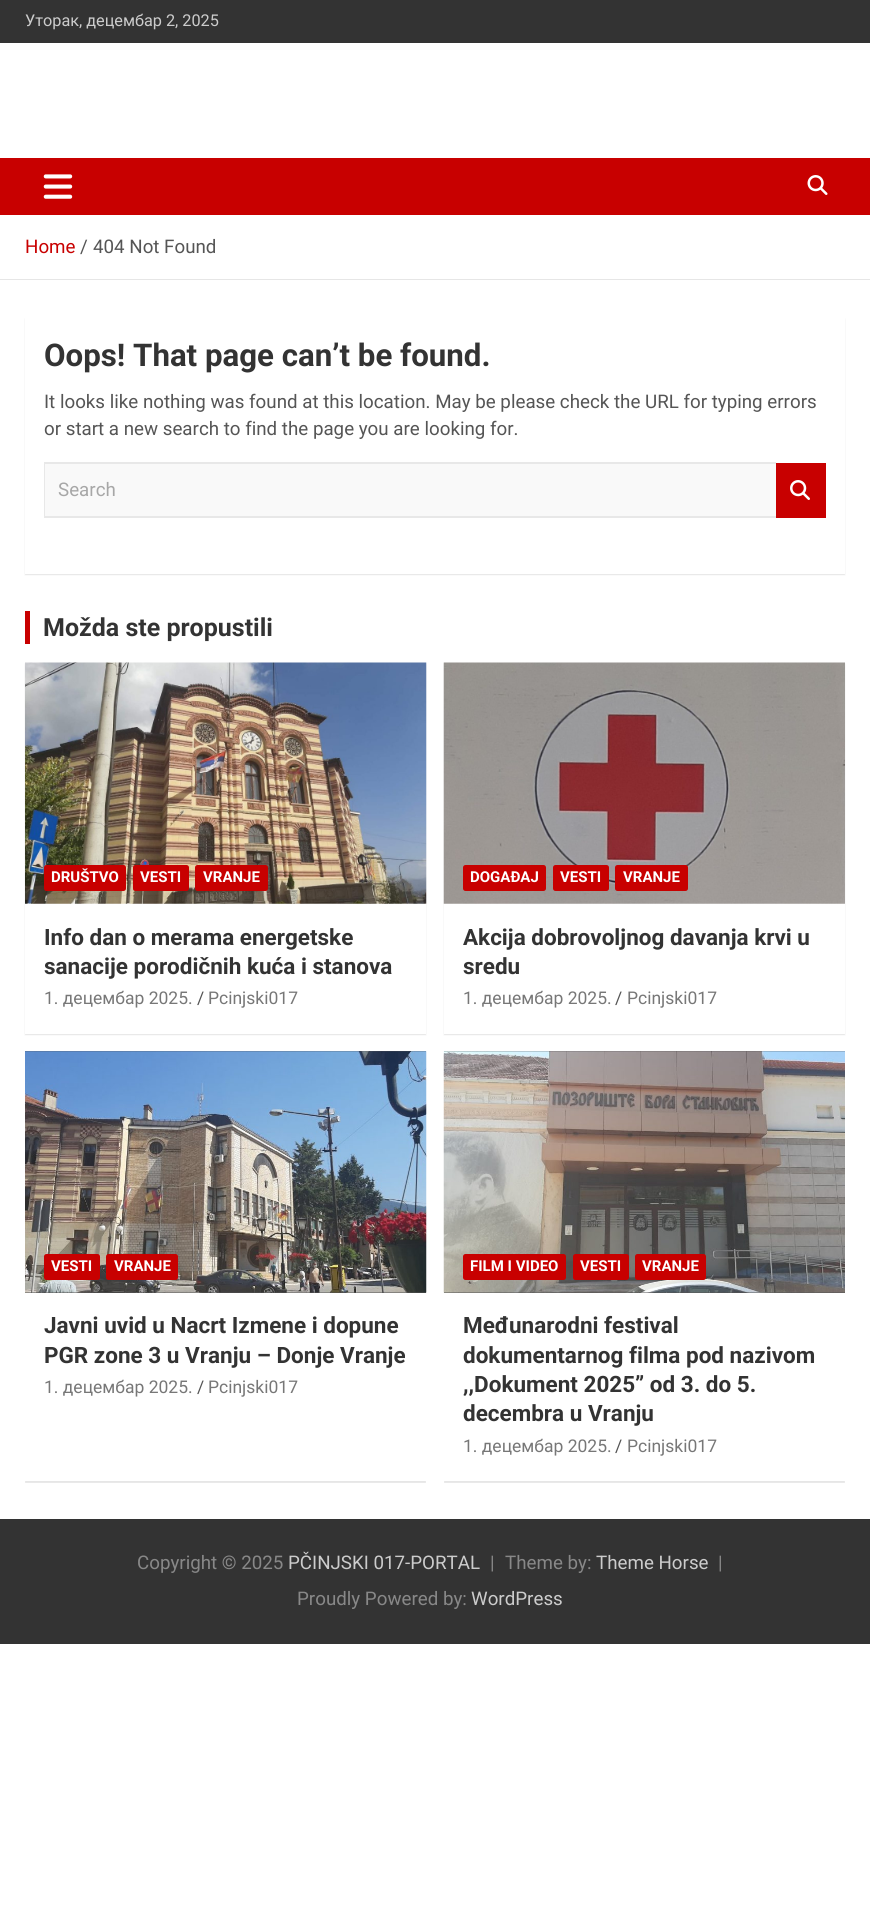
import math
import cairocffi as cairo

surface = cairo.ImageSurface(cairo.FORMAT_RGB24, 870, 1918)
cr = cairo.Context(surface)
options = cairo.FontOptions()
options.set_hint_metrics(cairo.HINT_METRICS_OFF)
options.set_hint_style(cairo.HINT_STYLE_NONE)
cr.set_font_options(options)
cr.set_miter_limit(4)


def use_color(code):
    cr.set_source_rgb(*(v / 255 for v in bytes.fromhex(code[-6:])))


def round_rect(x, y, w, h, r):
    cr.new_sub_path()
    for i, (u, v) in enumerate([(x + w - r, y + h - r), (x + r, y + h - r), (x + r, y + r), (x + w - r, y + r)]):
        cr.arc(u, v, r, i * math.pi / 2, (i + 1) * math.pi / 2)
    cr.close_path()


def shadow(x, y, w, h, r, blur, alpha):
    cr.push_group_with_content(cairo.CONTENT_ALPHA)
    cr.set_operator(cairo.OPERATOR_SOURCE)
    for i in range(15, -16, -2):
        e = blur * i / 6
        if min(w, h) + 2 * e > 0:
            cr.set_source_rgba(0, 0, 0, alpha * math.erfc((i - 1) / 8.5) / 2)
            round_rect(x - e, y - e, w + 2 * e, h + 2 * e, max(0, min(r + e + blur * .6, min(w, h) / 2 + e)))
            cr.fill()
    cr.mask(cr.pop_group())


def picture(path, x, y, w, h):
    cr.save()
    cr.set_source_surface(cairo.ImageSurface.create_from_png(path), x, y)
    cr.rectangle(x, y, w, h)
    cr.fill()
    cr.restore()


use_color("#ffffff")
cr.paint()
use_color("#333333")
cr.rectangle(0, 0, 870, 43)
cr.fill()
cr.select_font_face("Roboto")
cr.set_font_size(16.25)
use_color("#cccccc")
cr.move_to(25, 26)
cr.show_text("Уторак, децембар 2, 2025")
use_color("#c80000")
cr.rectangle(0, 158, 870, 57)
cr.fill()
picture("img1.png", 43, 174, 30, 25)
picture("img2.png", 807, 175, 21, 20)
use_color("#e6e6e6")
cr.rectangle(0, 279, 870, 1)
cr.fill()
cr.set_font_size(18.75)
use_color("#c80000")
cr.move_to(25, 253)
cr.show_text("Home")
use_color("#555555")
cr.move_to(80, 253)
cr.show_text("/")
cr.move_to(93, 253)
cr.show_text("404 Not Found")
use_color("#000000")
shadow(25, 319, 820, 256, 0, 0.5, 0.1)
use_color("#ffffff")
cr.rectangle(25, 318, 820, 256)
cr.fill()
cr.select_font_face("Roboto", cairo.FONT_SLANT_NORMAL, cairo.FONT_WEIGHT_BOLD)
cr.set_font_size(31.25)
use_color("#333333")
cr.move_to(44, 366)
cr.show_text("Oops! That page can’t be found.")
cr.select_font_face("Roboto")
cr.set_font_size(18.75)
use_color("#555555")
cr.move_to(44, 408)
cr.show_text("It looks like nothing was found at this location. May be please check the URL for typing errors")
cr.move_to(44, 435)
cr.show_text("or start a new search to find the page you are looking for.")
use_color("#f9f9f9")
cr.rectangle(45, 464, 731, 52)
cr.fill()
use_color("#e8e8e8")
cr.new_path()
cr.move_to(44, 462)
cr.line_to(776, 462)
cr.line_to(776, 464)
cr.line_to(45, 464)
cr.close_path()
cr.fill()
cr.new_path()
cr.move_to(776, 518)
cr.line_to(44, 518)
cr.line_to(45, 516)
cr.line_to(776, 516)
cr.close_path()
cr.fill()
cr.set_source_rgba(0, 0, 0, 0.09)
cr.new_path()
cr.move_to(44, 518)
cr.line_to(44, 462)
cr.line_to(45, 464)
cr.line_to(45, 516)
cr.close_path()
cr.fill()
use_color("#a7a7a7")
cr.move_to(58, 496)
cr.show_text("Search")
use_color("#c80000")
cr.rectangle(776, 463, 50, 55)
cr.fill()
picture("img3.png", 790, 480, 20, 20)
cr.rectangle(25, 611, 5, 33)
cr.fill()
cr.select_font_face("Roboto", cairo.FONT_SLANT_NORMAL, cairo.FONT_WEIGHT_BOLD)
cr.set_font_size(25)
use_color("#333333")
cr.move_to(43, 636)
cr.show_text("Možda ste propustili")
use_color("#000000")
shadow(25, 664, 401, 371, 0, 0.5, 0.1)
use_color("#ffffff")
cr.rectangle(25, 903, 401, 131)
cr.fill()
picture("img4.png", 25, 662, 402, 242)
use_color("#c80000")
round_rect(44, 865, 82, 26, 2.5)
cr.fill()
cr.set_font_size(15)
use_color("#ffffff")
cr.move_to(51, 882)
cr.show_text("DRUŠTVO")
use_color("#c80000")
round_rect(133, 865, 56, 26, 2.5)
cr.fill()
use_color("#ffffff")
cr.move_to(140, 882)
cr.show_text("VESTI")
use_color("#c80000")
round_rect(195, 865, 73, 26, 2.5)
cr.fill()
use_color("#ffffff")
cr.move_to(203, 882)
cr.show_text("VRANJE")
cr.set_font_size(22.5)
use_color("#333333")
cr.move_to(44, 945)
cr.show_text("Info dan o merama energetske")
cr.move_to(44, 974)
cr.show_text("sanacije porodičnih kuća i stanova")
cr.select_font_face("Roboto")
cr.set_font_size(17.5)
use_color("#777777")
cr.move_to(44, 1004)
cr.show_text("1. децембар 2025.")
use_color("#555555")
cr.move_to(197, 1004)
cr.show_text("/")
use_color("#777777")
cr.move_to(208, 1004)
cr.show_text("Pcinjski017")
use_color("#000000")
shadow(444, 664, 401, 371, 0, 0.5, 0.1)
use_color("#ffffff")
cr.rectangle(444, 903, 401, 131)
cr.fill()
picture("img5.png", 443, 662, 402, 242)
use_color("#c80000")
round_rect(463, 865, 83, 26, 2.5)
cr.fill()
cr.select_font_face("Roboto", cairo.FONT_SLANT_NORMAL, cairo.FONT_WEIGHT_BOLD)
cr.set_font_size(15)
use_color("#ffffff")
cr.move_to(470, 882)
cr.show_text("DOGAĐAJ")
use_color("#c80000")
round_rect(553, 865, 56, 26, 2.5)
cr.fill()
use_color("#ffffff")
cr.move_to(560, 882)
cr.show_text("VESTI")
use_color("#c80000")
round_rect(615, 865, 73, 26, 2.5)
cr.fill()
use_color("#ffffff")
cr.move_to(623, 882)
cr.show_text("VRANJE")
cr.set_font_size(22.5)
use_color("#333333")
cr.move_to(463, 945)
cr.show_text("Akcija dobrovoljnog davanja krvi u")
cr.move_to(463, 974)
cr.show_text("sredu")
cr.select_font_face("Roboto")
cr.set_font_size(17.5)
use_color("#777777")
cr.move_to(463, 1004)
cr.show_text("1. децембар 2025.")
use_color("#555555")
cr.move_to(615, 1004)
cr.show_text("/")
use_color("#777777")
cr.move_to(627, 1004)
cr.show_text("Pcinjski017")
cr.save()
cr.rectangle(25, 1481, 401, 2)
cr.clip()
use_color("#000000")
shadow(25, 1053, 401, 430, 0, 0.5, 0.1)
cr.restore()
use_color("#555555")
cr.rectangle(25, 1051, 401, 242)
cr.fill()
picture("img6.png", 25, 1051, 402, 242)
use_color("#c80000")
round_rect(44, 1254, 56, 26, 2.5)
cr.fill()
cr.select_font_face("Roboto", cairo.FONT_SLANT_NORMAL, cairo.FONT_WEIGHT_BOLD)
cr.set_font_size(15)
use_color("#ffffff")
cr.move_to(51, 1271)
cr.show_text("VESTI")
use_color("#c80000")
round_rect(106, 1254, 72, 26, 2.5)
cr.fill()
use_color("#ffffff")
cr.move_to(114, 1271)
cr.show_text("VRANJE")
cr.set_font_size(22.5)
use_color("#333333")
cr.move_to(44, 1333)
cr.show_text("Javni uvid u Nacrt Izmene i dopune")
cr.move_to(44, 1363)
cr.show_text("PGR zone 3 u Vranju – Donje Vranje")
cr.select_font_face("Roboto")
cr.set_font_size(17.5)
use_color("#777777")
cr.move_to(44, 1393)
cr.show_text("1. децембар 2025.")
use_color("#555555")
cr.move_to(197, 1393)
cr.show_text("/")
use_color("#777777")
cr.move_to(208, 1393)
cr.show_text("Pcinjski017")
cr.save()
cr.rectangle(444, 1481, 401, 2)
cr.clip()
use_color("#000000")
shadow(444, 1053, 401, 430, 0, 0.5, 0.1)
cr.restore()
use_color("#555555")
cr.rectangle(444, 1051, 401, 242)
cr.fill()
picture("img7.png", 443, 1051, 402, 242)
use_color("#c80000")
round_rect(463, 1254, 103, 26, 2.5)
cr.fill()
cr.select_font_face("Roboto", cairo.FONT_SLANT_NORMAL, cairo.FONT_WEIGHT_BOLD)
cr.set_font_size(15)
use_color("#ffffff")
cr.move_to(470, 1271)
cr.show_text("FILM I VIDEO")
use_color("#c80000")
round_rect(573, 1254, 56, 26, 2.5)
cr.fill()
use_color("#ffffff")
cr.move_to(580, 1271)
cr.show_text("VESTI")
use_color("#c80000")
round_rect(635, 1254, 71, 26, 2.5)
cr.fill()
use_color("#ffffff")
cr.move_to(642, 1271)
cr.show_text("VRANJE")
cr.set_font_size(22.5)
use_color("#333333")
cr.move_to(463, 1333)
cr.show_text("Međunarodni festival")
cr.move_to(463, 1363)
cr.show_text("dokumentarnog filma pod nazivom")
cr.move_to(463, 1392)
cr.show_text(",,Dokument 2025” od 3. do 5.")
cr.move_to(463, 1421)
cr.show_text("decembra u Vranju")
cr.select_font_face("Roboto")
cr.set_font_size(17.5)
use_color("#777777")
cr.move_to(463, 1452)
cr.show_text("1. децембар 2025.")
use_color("#555555")
cr.move_to(615, 1452)
cr.show_text("/")
use_color("#777777")
cr.move_to(627, 1452)
cr.show_text("Pcinjski017")
use_color("#333333")
cr.rectangle(0, 1519, 870, 125)
cr.fill()
cr.set_font_size(18.75)
use_color("#888888")
cr.move_to(137, 1569)
cr.show_text("Copyright © 2025")
use_color("#cccccc")
cr.move_to(288, 1569)
cr.show_text("PČINJSKI 017-PORTAL")
use_color("#888888")
cr.move_to(490, 1569)
cr.show_text("|")
cr.move_to(505, 1569)
cr.show_text("Theme by:")
use_color("#cccccc")
cr.move_to(596, 1569)
cr.show_text("Theme Horse")
use_color("#888888")
cr.move_to(718, 1569)
cr.show_text("|")
cr.move_to(297, 1605)
cr.show_text("Proudly Powered by:")
use_color("#cccccc")
cr.move_to(471, 1605)
cr.show_text("WordPress")
surface.write_to_png("result.png")
